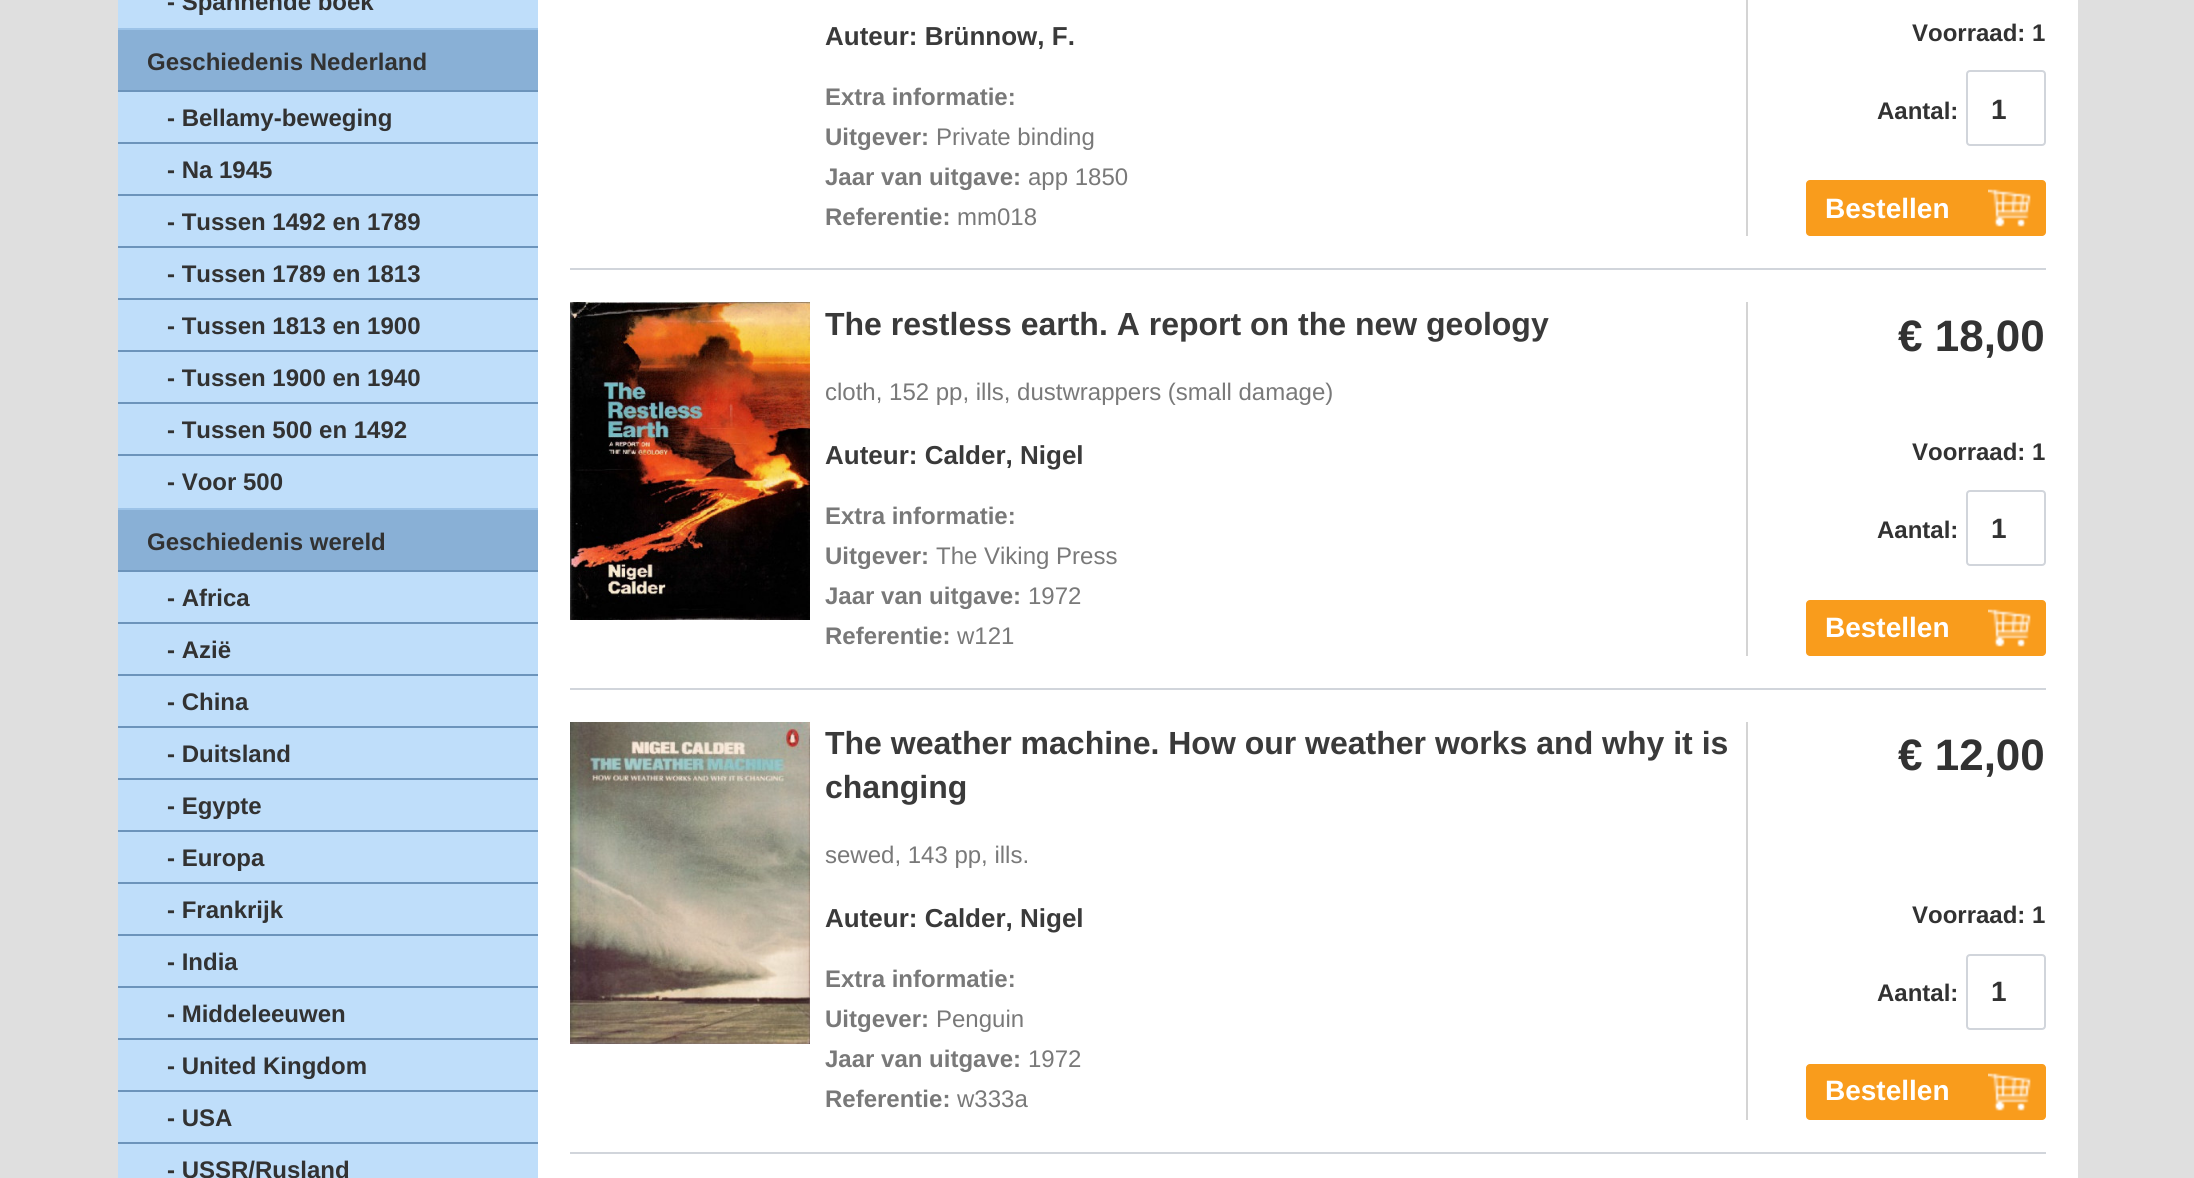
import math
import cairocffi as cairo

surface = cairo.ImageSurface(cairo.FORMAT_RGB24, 2194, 1178)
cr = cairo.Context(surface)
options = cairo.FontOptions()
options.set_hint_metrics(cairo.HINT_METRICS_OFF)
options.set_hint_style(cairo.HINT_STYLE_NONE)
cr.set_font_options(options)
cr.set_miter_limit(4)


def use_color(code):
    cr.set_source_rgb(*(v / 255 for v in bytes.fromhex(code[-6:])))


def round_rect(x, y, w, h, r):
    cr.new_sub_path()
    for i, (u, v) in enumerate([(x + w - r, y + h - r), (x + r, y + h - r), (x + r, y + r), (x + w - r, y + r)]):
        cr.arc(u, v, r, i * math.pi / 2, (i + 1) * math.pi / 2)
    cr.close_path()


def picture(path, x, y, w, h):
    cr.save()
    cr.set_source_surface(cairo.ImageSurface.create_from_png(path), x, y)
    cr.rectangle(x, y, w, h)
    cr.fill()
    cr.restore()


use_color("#dfdfdf")
cr.paint()
use_color("#ffffff")
cr.rectangle(538, 0, 1540, 1178)
cr.fill()
use_color("#89b0d6")
cr.rectangle(118, 30, 420, 540)
cr.fill()
use_color("#bfdefa")
cr.rectangle(118, 0, 420, 28)
cr.fill()
cr.select_font_face("Liberation Sans", cairo.FONT_SLANT_NORMAL, cairo.FONT_WEIGHT_BOLD)
cr.set_font_size(24)
use_color("#323232")
cr.move_to(167, 10)
cr.show_text("- Spannende boek")
use_color("#9cc3e8")
cr.rectangle(118, 28, 420, 2)
cr.fill()
use_color("#6c94bb")
cr.rectangle(118, 90, 420, 2)
cr.fill()
use_color("#323232")
cr.move_to(147, 70)
cr.show_text("Geschiedenis Nederland")
use_color("#bfdefa")
cr.rectangle(118, 92, 420, 50)
cr.fill()
use_color("#6c94bb")
cr.rectangle(118, 142, 420, 2)
cr.fill()
use_color("#323232")
cr.move_to(167, 126)
cr.show_text("- Bellamy-beweging")
use_color("#bfdefa")
cr.rectangle(118, 144, 420, 50)
cr.fill()
use_color("#6c94bb")
cr.rectangle(118, 194, 420, 2)
cr.fill()
use_color("#323232")
cr.move_to(167, 178)
cr.show_text("- Na 1945")
use_color("#bfdefa")
cr.rectangle(118, 196, 420, 50)
cr.fill()
use_color("#6c94bb")
cr.rectangle(118, 246, 420, 2)
cr.fill()
use_color("#323232")
cr.move_to(167, 230)
cr.show_text("- Tussen 1492 en 1789")
use_color("#bfdefa")
cr.rectangle(118, 248, 420, 50)
cr.fill()
use_color("#6c94bb")
cr.rectangle(118, 298, 420, 2)
cr.fill()
use_color("#323232")
cr.move_to(167, 282)
cr.show_text("- Tussen 1789 en 1813")
use_color("#bfdefa")
cr.rectangle(118, 300, 420, 50)
cr.fill()
use_color("#6c94bb")
cr.rectangle(118, 350, 420, 2)
cr.fill()
use_color("#323232")
cr.move_to(167, 334)
cr.show_text("- Tussen 1813 en 1900")
use_color("#bfdefa")
cr.rectangle(118, 352, 420, 50)
cr.fill()
use_color("#6c94bb")
cr.rectangle(118, 402, 420, 2)
cr.fill()
use_color("#323232")
cr.move_to(167, 386)
cr.show_text("- Tussen 1900 en 1940")
use_color("#bfdefa")
cr.rectangle(118, 404, 420, 50)
cr.fill()
use_color("#6c94bb")
cr.rectangle(118, 454, 420, 2)
cr.fill()
use_color("#323232")
cr.move_to(167, 438)
cr.show_text("- Tussen 500 en 1492")
use_color("#bfdefa")
cr.rectangle(118, 456, 420, 52)
cr.fill()
use_color("#323232")
cr.move_to(167, 490)
cr.show_text("- Voor 500")
use_color("#9cc3e8")
cr.rectangle(118, 508, 420, 2)
cr.fill()
use_color("#6c94bb")
cr.rectangle(118, 570, 420, 2)
cr.fill()
use_color("#323232")
cr.move_to(147, 550)
cr.show_text("Geschiedenis wereld")
use_color("#bfdefa")
cr.rectangle(118, 572, 420, 50)
cr.fill()
use_color("#6c94bb")
cr.rectangle(118, 622, 420, 2)
cr.fill()
use_color("#323232")
cr.move_to(167, 606)
cr.show_text("- Africa")
use_color("#bfdefa")
cr.rectangle(118, 624, 420, 50)
cr.fill()
use_color("#6c94bb")
cr.rectangle(118, 674, 420, 2)
cr.fill()
use_color("#323232")
cr.move_to(167, 658)
cr.show_text("- Azië")
use_color("#bfdefa")
cr.rectangle(118, 676, 420, 50)
cr.fill()
use_color("#6c94bb")
cr.rectangle(118, 726, 420, 2)
cr.fill()
use_color("#323232")
cr.move_to(167, 710)
cr.show_text("- China")
use_color("#bfdefa")
cr.rectangle(118, 728, 420, 50)
cr.fill()
use_color("#6c94bb")
cr.rectangle(118, 778, 420, 2)
cr.fill()
use_color("#323232")
cr.move_to(167, 762)
cr.show_text("- Duitsland")
use_color("#bfdefa")
cr.rectangle(118, 780, 420, 50)
cr.fill()
use_color("#6c94bb")
cr.rectangle(118, 830, 420, 2)
cr.fill()
use_color("#323232")
cr.move_to(167, 814)
cr.show_text("- Egypte")
use_color("#bfdefa")
cr.rectangle(118, 832, 420, 50)
cr.fill()
use_color("#6c94bb")
cr.rectangle(118, 882, 420, 2)
cr.fill()
use_color("#323232")
cr.move_to(167, 866)
cr.show_text("- Europa")
use_color("#bfdefa")
cr.rectangle(118, 884, 420, 50)
cr.fill()
use_color("#6c94bb")
cr.rectangle(118, 934, 420, 2)
cr.fill()
use_color("#323232")
cr.move_to(167, 918)
cr.show_text("- Frankrijk")
use_color("#bfdefa")
cr.rectangle(118, 936, 420, 50)
cr.fill()
use_color("#6c94bb")
cr.rectangle(118, 986, 420, 2)
cr.fill()
use_color("#323232")
cr.move_to(167, 970)
cr.show_text("- India")
use_color("#bfdefa")
cr.rectangle(118, 988, 420, 50)
cr.fill()
use_color("#6c94bb")
cr.rectangle(118, 1038, 420, 2)
cr.fill()
use_color("#323232")
cr.move_to(167, 1022)
cr.show_text("- Middeleeuwen")
use_color("#bfdefa")
cr.rectangle(118, 1040, 420, 50)
cr.fill()
use_color("#6c94bb")
cr.rectangle(118, 1090, 420, 2)
cr.fill()
use_color("#323232")
cr.move_to(167, 1074)
cr.show_text("- United Kingdom")
use_color("#bfdefa")
cr.rectangle(118, 1092, 420, 50)
cr.fill()
use_color("#6c94bb")
cr.rectangle(118, 1142, 420, 2)
cr.fill()
use_color("#323232")
cr.move_to(167, 1126)
cr.show_text("- USA")
use_color("#bfdefa")
cr.rectangle(118, 1144, 420, 34)
cr.fill()
use_color("#323232")
cr.move_to(167, 1178)
cr.show_text("- USSR/Rusland")
cr.set_font_size(26)
use_color("#3a3a3a")
cr.move_to(825, 45)
cr.show_text("Auteur: Brünnow, F.")
cr.set_font_size(24)
use_color("#797979")
cr.move_to(825, 105)
cr.show_text("Extra informatie:")
cr.move_to(825, 145)
cr.show_text("Uitgever:")
cr.select_font_face("Liberation Sans")
cr.move_to(936, 145)
cr.show_text("Private binding")
cr.select_font_face("Liberation Sans", cairo.FONT_SLANT_NORMAL, cairo.FONT_WEIGHT_BOLD)
cr.move_to(825, 185)
cr.show_text("Jaar van uitgave:")
cr.select_font_face("Liberation Sans")
cr.move_to(1028, 185)
cr.show_text("app 1850")
cr.select_font_face("Liberation Sans", cairo.FONT_SLANT_NORMAL, cairo.FONT_WEIGHT_BOLD)
cr.move_to(825, 225)
cr.show_text("Referentie:")
cr.select_font_face("Liberation Sans")
cr.move_to(957, 225)
cr.show_text("mm018")
use_color("#d4d4d4")
cr.rectangle(1746, 0, 2, 236)
cr.fill()
cr.select_font_face("Liberation Sans", cairo.FONT_SLANT_NORMAL, cairo.FONT_WEIGHT_BOLD)
use_color("#323232")
cr.move_to(1912, 41)
cr.show_text("Voorraad: 1")
cr.move_to(1877, 119)
cr.show_text("Aantal:")
round_rect(1967, 71, 78, 74, 3)
use_color("#d1d5db")
cr.stroke()
cr.set_font_size(28)
use_color("#323232")
cr.move_to(1991, 119)
cr.show_text("1")
use_color("#f99c1c")
round_rect(1806, 180, 240, 56, 4)
cr.fill()
picture("img1.png", 1988, 189, 43, 38)
use_color("#ffffff")
cr.move_to(1825, 218)
cr.show_text("Bestellen")
use_color("#d1d5db")
cr.rectangle(570, 268, 1476, 2)
cr.fill()
picture("img2.png", 570, 302, 240, 318)
cr.set_font_size(32)
use_color("#3a3a3a")
cr.move_to(825, 335)
cr.show_text("The restless earth. A report on the new geology")
cr.select_font_face("Liberation Sans")
cr.set_font_size(24)
use_color("#797979")
cr.move_to(825, 400)
cr.show_text("cloth, 152 pp, ills, dustwrappers (small damage)")
cr.select_font_face("Liberation Sans", cairo.FONT_SLANT_NORMAL, cairo.FONT_WEIGHT_BOLD)
cr.set_font_size(26)
use_color("#3a3a3a")
cr.move_to(825, 464)
cr.show_text("Auteur: Calder, Nigel")
cr.set_font_size(24)
use_color("#797979")
cr.move_to(825, 524)
cr.show_text("Extra informatie:")
cr.move_to(825, 564)
cr.show_text("Uitgever:")
cr.select_font_face("Liberation Sans")
cr.move_to(936, 564)
cr.show_text("The Viking Press")
cr.select_font_face("Liberation Sans", cairo.FONT_SLANT_NORMAL, cairo.FONT_WEIGHT_BOLD)
cr.move_to(825, 604)
cr.show_text("Jaar van uitgave:")
cr.select_font_face("Liberation Sans")
cr.move_to(1028, 604)
cr.show_text("1972")
cr.select_font_face("Liberation Sans", cairo.FONT_SLANT_NORMAL, cairo.FONT_WEIGHT_BOLD)
cr.move_to(825, 644)
cr.show_text("Referentie:")
cr.select_font_face("Liberation Sans")
cr.move_to(957, 644)
cr.show_text("w121")
use_color("#d4d4d4")
cr.rectangle(1746, 302, 2, 354)
cr.fill()
cr.select_font_face("Liberation Sans", cairo.FONT_SLANT_NORMAL, cairo.FONT_WEIGHT_BOLD)
cr.set_font_size(44)
use_color("#323232")
cr.move_to(1898, 351)
cr.show_text("€ 18,00")
cr.set_font_size(24)
cr.move_to(1912, 460)
cr.show_text("Voorraad: 1")
cr.move_to(1877, 538)
cr.show_text("Aantal:")
round_rect(1967, 491, 78, 74, 3)
use_color("#d1d5db")
cr.stroke()
cr.set_font_size(28)
use_color("#323232")
cr.move_to(1991, 538)
cr.show_text("1")
use_color("#f99c1c")
round_rect(1806, 600, 240, 56, 4)
cr.fill()
picture("img1.png", 1988, 609, 43, 38)
use_color("#ffffff")
cr.move_to(1825, 637)
cr.show_text("Bestellen")
use_color("#d1d5db")
cr.rectangle(570, 688, 1476, 2)
cr.fill()
picture("img3.png", 570, 722, 240, 322)
cr.set_font_size(32)
use_color("#3a3a3a")
cr.move_to(825, 754)
cr.show_text("The weather machine. How our weather works and why it is")
cr.move_to(825, 798)
cr.show_text("changing")
cr.select_font_face("Liberation Sans")
cr.set_font_size(24)
use_color("#797979")
cr.move_to(825, 863)
cr.show_text("sewed, 143 pp, ills.")
cr.select_font_face("Liberation Sans", cairo.FONT_SLANT_NORMAL, cairo.FONT_WEIGHT_BOLD)
cr.set_font_size(26)
use_color("#3a3a3a")
cr.move_to(825, 927)
cr.show_text("Auteur: Calder, Nigel")
cr.set_font_size(24)
use_color("#797979")
cr.move_to(825, 987)
cr.show_text("Extra informatie:")
cr.move_to(825, 1027)
cr.show_text("Uitgever:")
cr.select_font_face("Liberation Sans")
cr.move_to(936, 1027)
cr.show_text("Penguin")
cr.select_font_face("Liberation Sans", cairo.FONT_SLANT_NORMAL, cairo.FONT_WEIGHT_BOLD)
cr.move_to(825, 1067)
cr.show_text("Jaar van uitgave:")
cr.select_font_face("Liberation Sans")
cr.move_to(1028, 1067)
cr.show_text("1972")
cr.select_font_face("Liberation Sans", cairo.FONT_SLANT_NORMAL, cairo.FONT_WEIGHT_BOLD)
cr.move_to(825, 1107)
cr.show_text("Referentie:")
cr.select_font_face("Liberation Sans")
cr.move_to(957, 1107)
cr.show_text("w333a")
use_color("#d4d4d4")
cr.rectangle(1746, 722, 2, 398)
cr.fill()
cr.select_font_face("Liberation Sans", cairo.FONT_SLANT_NORMAL, cairo.FONT_WEIGHT_BOLD)
cr.set_font_size(44)
use_color("#323232")
cr.move_to(1898, 770)
cr.show_text("€ 12,00")
cr.set_font_size(24)
cr.move_to(1912, 923)
cr.show_text("Voorraad: 1")
cr.move_to(1877, 1001)
cr.show_text("Aantal:")
round_rect(1967, 955, 78, 74, 3)
use_color("#d1d5db")
cr.stroke()
cr.set_font_size(28)
use_color("#323232")
cr.move_to(1991, 1001)
cr.show_text("1")
use_color("#f99c1c")
round_rect(1806, 1064, 240, 56, 4)
cr.fill()
picture("img1.png", 1988, 1073, 43, 38)
use_color("#ffffff")
cr.move_to(1825, 1100)
cr.show_text("Bestellen")
use_color("#d1d5db")
cr.rectangle(570, 1152, 1476, 2)
cr.fill()
surface.write_to_png("result.png")
